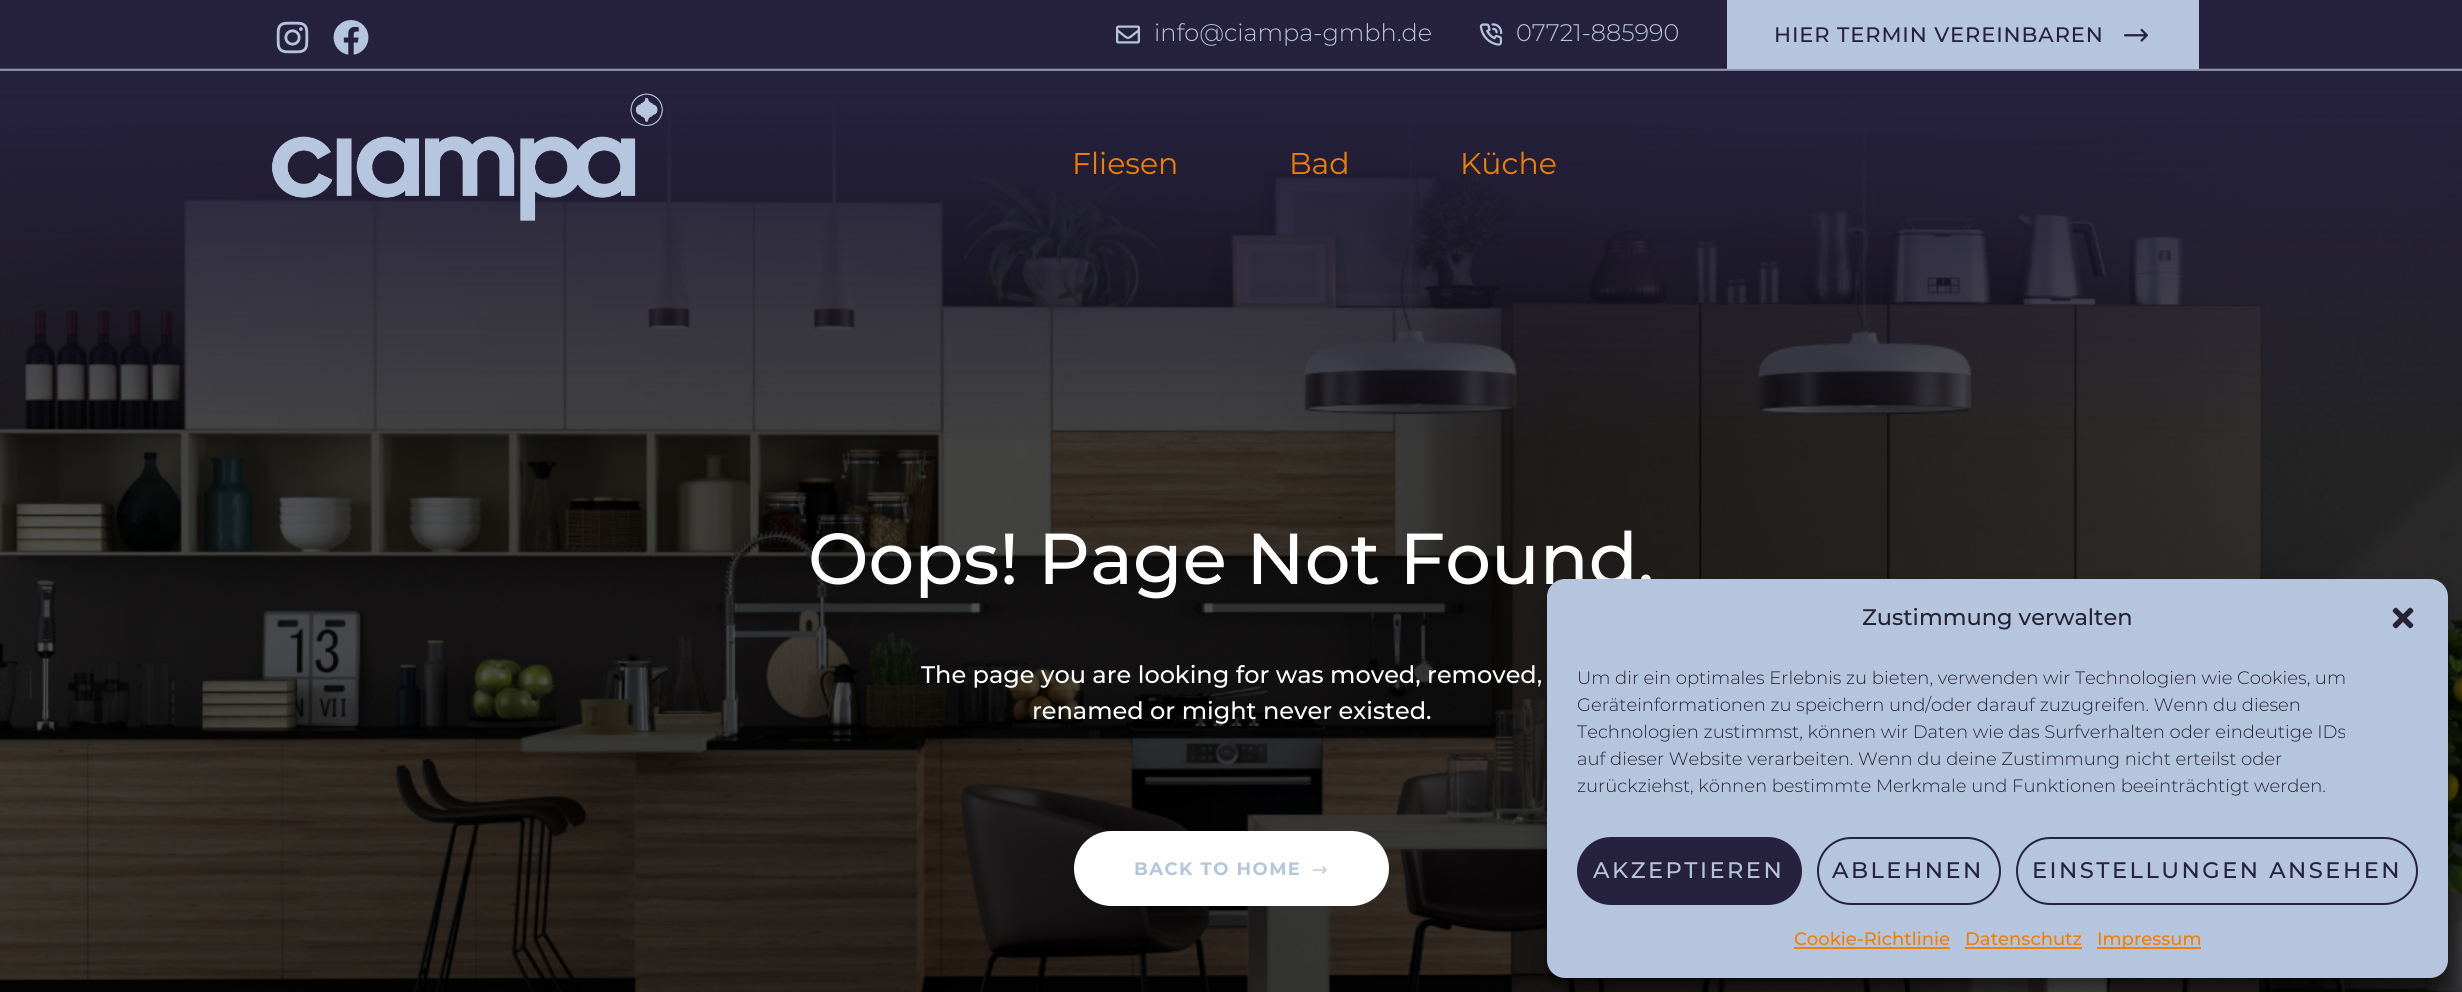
import math
import cairocffi as cairo

surface = cairo.ImageSurface(cairo.FORMAT_RGB24, 2462, 992)
cr = cairo.Context(surface)
options = cairo.FontOptions()
options.set_hint_metrics(cairo.HINT_METRICS_OFF)
options.set_hint_style(cairo.HINT_STYLE_NONE)
cr.set_font_options(options)
cr.set_miter_limit(4)


def use_color(code):
    cr.set_source_rgb(*(v / 255 for v in bytes.fromhex(code[-6:])))


def spaced_text(x, y, s, letter, word):
    cr.move_to(x, y)
    for ch in s:
        cr.show_text(ch)
        cr.rel_move_to(letter + word * (ch == ' '), 0)


def round_rect(x, y, w, h, r):
    cr.new_sub_path()
    for i, (u, v) in enumerate([(x + w - r, y + h - r), (x + r, y + h - r), (x + r, y + r), (x + w - r, y + r)]):
        cr.arc(u, v, r, i * math.pi / 2, (i + 1) * math.pi / 2)
    cr.close_path()


def shadow(x, y, w, h, r, blur, alpha):
    cr.push_group_with_content(cairo.CONTENT_ALPHA)
    cr.set_operator(cairo.OPERATOR_SOURCE)
    for i in range(15, -16, -2):
        e = blur * i / 6
        if min(w, h) + 2 * e > 0:
            cr.set_source_rgba(0, 0, 0, alpha * math.erfc((i - 1) / 8.5) / 2)
            round_rect(x - e, y - e, w + 2 * e, h + 2 * e, max(0, min(r + e + blur * .6, min(w, h) / 2 + e)))
            cr.fill()
    cr.mask(cr.pop_group())


def picture(path, x, y, w, h):
    cr.save()
    cr.set_source_surface(cairo.ImageSurface.create_from_png(path), x, y)
    cr.rectangle(x, y, w, h)
    cr.fill()
    cr.restore()


use_color("#ffffff")
cr.paint()
picture("img7.png", 0, 93, 2462, 899)
gradient = cairo.LinearGradient(1232, 0, 1232, 453)
gradient.add_color_stop_rgba(0.2, 0.149, 0.129, 0.247, 1)
gradient.add_color_stop_rgba(1, 0.149, 0.129, 0.247, 0)
cr.set_source(gradient)
cr.rectangle(0, 0, 2462, 439)
cr.fill()
use_color("#49455e")
cr.rectangle(0, 68, 2462, 2)
cr.fill()
picture("img1.png", 276, 21, 33, 33)
picture("img2.png", 333, 20, 36, 35)
picture("img3.png", 1116, 25, 24, 19)
cr.select_font_face("Montserrat Light")
cr.set_font_size(24)
use_color("#b6c5de")
cr.move_to(1154, 41)
cr.show_text("info@ciampa-gmbh.de")
picture("img4.png", 1479, 23, 24, 23)
cr.move_to(1516, 41)
cr.show_text("07721-885990")
cr.rectangle(1727, 0, 472, 69)
cr.fill()
cr.select_font_face("Montserrat Medium")
cr.set_font_size(21)
use_color("#26213f")
spaced_text(1774, 42, "HIER TERMIN VEREINBAREN", 0.9, 0)
picture("img5.png", 2124, 28, 24, 14)
cr.set_source_rgba(0.714, 0.773, 0.871, 0.62)
cr.rectangle(0, 69, 2462, 2)
cr.fill()
picture("img6.png", 271, 93, 392, 128)
cr.select_font_face("Montserrat")
cr.set_font_size(30)
use_color("#f07e00")
cr.move_to(1072, 174)
cr.show_text("Fliesen")
cr.move_to(1289, 174)
cr.show_text("Bad")
cr.move_to(1460, 174)
cr.show_text("Küche")
cr.select_font_face("Montserrat Medium")
cr.set_font_size(72)
use_color("#ffffff")
cr.move_to(808, 584)
cr.show_text("Oops! Page Not Found.")
cr.set_font_size(24)
cr.move_to(921, 683)
cr.show_text("The page you are looking for was moved, removed,")
cr.move_to(1032, 719)
cr.show_text("renamed or might never existed.")
round_rect(1074, 831, 315, 75, 37.5)
cr.fill()
cr.select_font_face("Montserrat", cairo.FONT_SLANT_NORMAL, cairo.FONT_WEIGHT_BOLD)
cr.set_font_size(18)
use_color("#b6c5de")
spaced_text(1134, 875, "BACK TO HOME", 1.5, 0)
picture("img8.png", 1312, 866, 15, 8)
use_color("#000000")
shadow(1547, 588, 901, 399, 18, 4.5, 0.23)
shadow(1547, 594, 901, 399, 18, 15, 0.19)
use_color("#b6c5de")
round_rect(1547, 579, 901, 399, 18)
cr.fill()
cr.select_font_face("Montserrat Medium")
cr.set_font_size(22.5)
use_color("#262133")
cr.move_to(1862, 625)
cr.show_text("Zustimmung verwalten")
picture("img9.png", 2392, 607, 22, 22)
cr.select_font_face("Montserrat Light")
cr.set_font_size(18)
cr.move_to(1577, 684)
cr.show_text("Um dir ein optimales Erlebnis zu bieten, verwenden wir Technologien wie Cookies, um")
cr.move_to(1577, 711)
cr.show_text("Geräteinformationen zu speichern und/oder darauf zuzugreifen. Wenn du diesen")
cr.move_to(1577, 738)
cr.show_text("Technologien zustimmst, können wir Daten wie das Surfverhalten oder eindeutige IDs")
cr.move_to(1577, 765)
cr.show_text("auf dieser Website verarbeiten. Wenn du deine Zustimmung nicht erteilst oder")
cr.move_to(1577, 792)
cr.show_text("zurückziehst, können bestimmte Merkmale und Funktionen beeinträchtigt werden.")
use_color("#26213f")
round_rect(1578, 838, 223, 66, 33)
cr.fill_preserve()
cr.stroke()
cr.select_font_face("Montserrat Medium")
cr.set_font_size(22.5)
use_color("#b6c5de")
spaced_text(1593, 878, "AKZEPTIEREN", 2.5, 0)
round_rect(1818, 838, 182, 66, 33)
use_color("#26213f")
cr.stroke()
spaced_text(1832, 878, "ABLEHNEN", 2.5, 0)
round_rect(2017, 838, 400, 66, 33)
cr.stroke()
spaced_text(2032, 878, "EINSTELLUNGEN ANSEHEN", 2.5, 0)
cr.set_font_size(18)
use_color("#f07e00")
cr.move_to(1794, 945)
cr.show_text("Cookie-Richtlinie")
cr.rectangle(1794, 947, 156, 2)
cr.fill()
cr.move_to(1965, 945)
cr.show_text("Datenschutz")
cr.rectangle(1965, 947, 117, 2)
cr.fill()
cr.rectangle(2097, 947, 104, 2)
cr.fill()
cr.move_to(2097, 945)
cr.show_text("Impressum")
surface.write_to_png("result.png")
